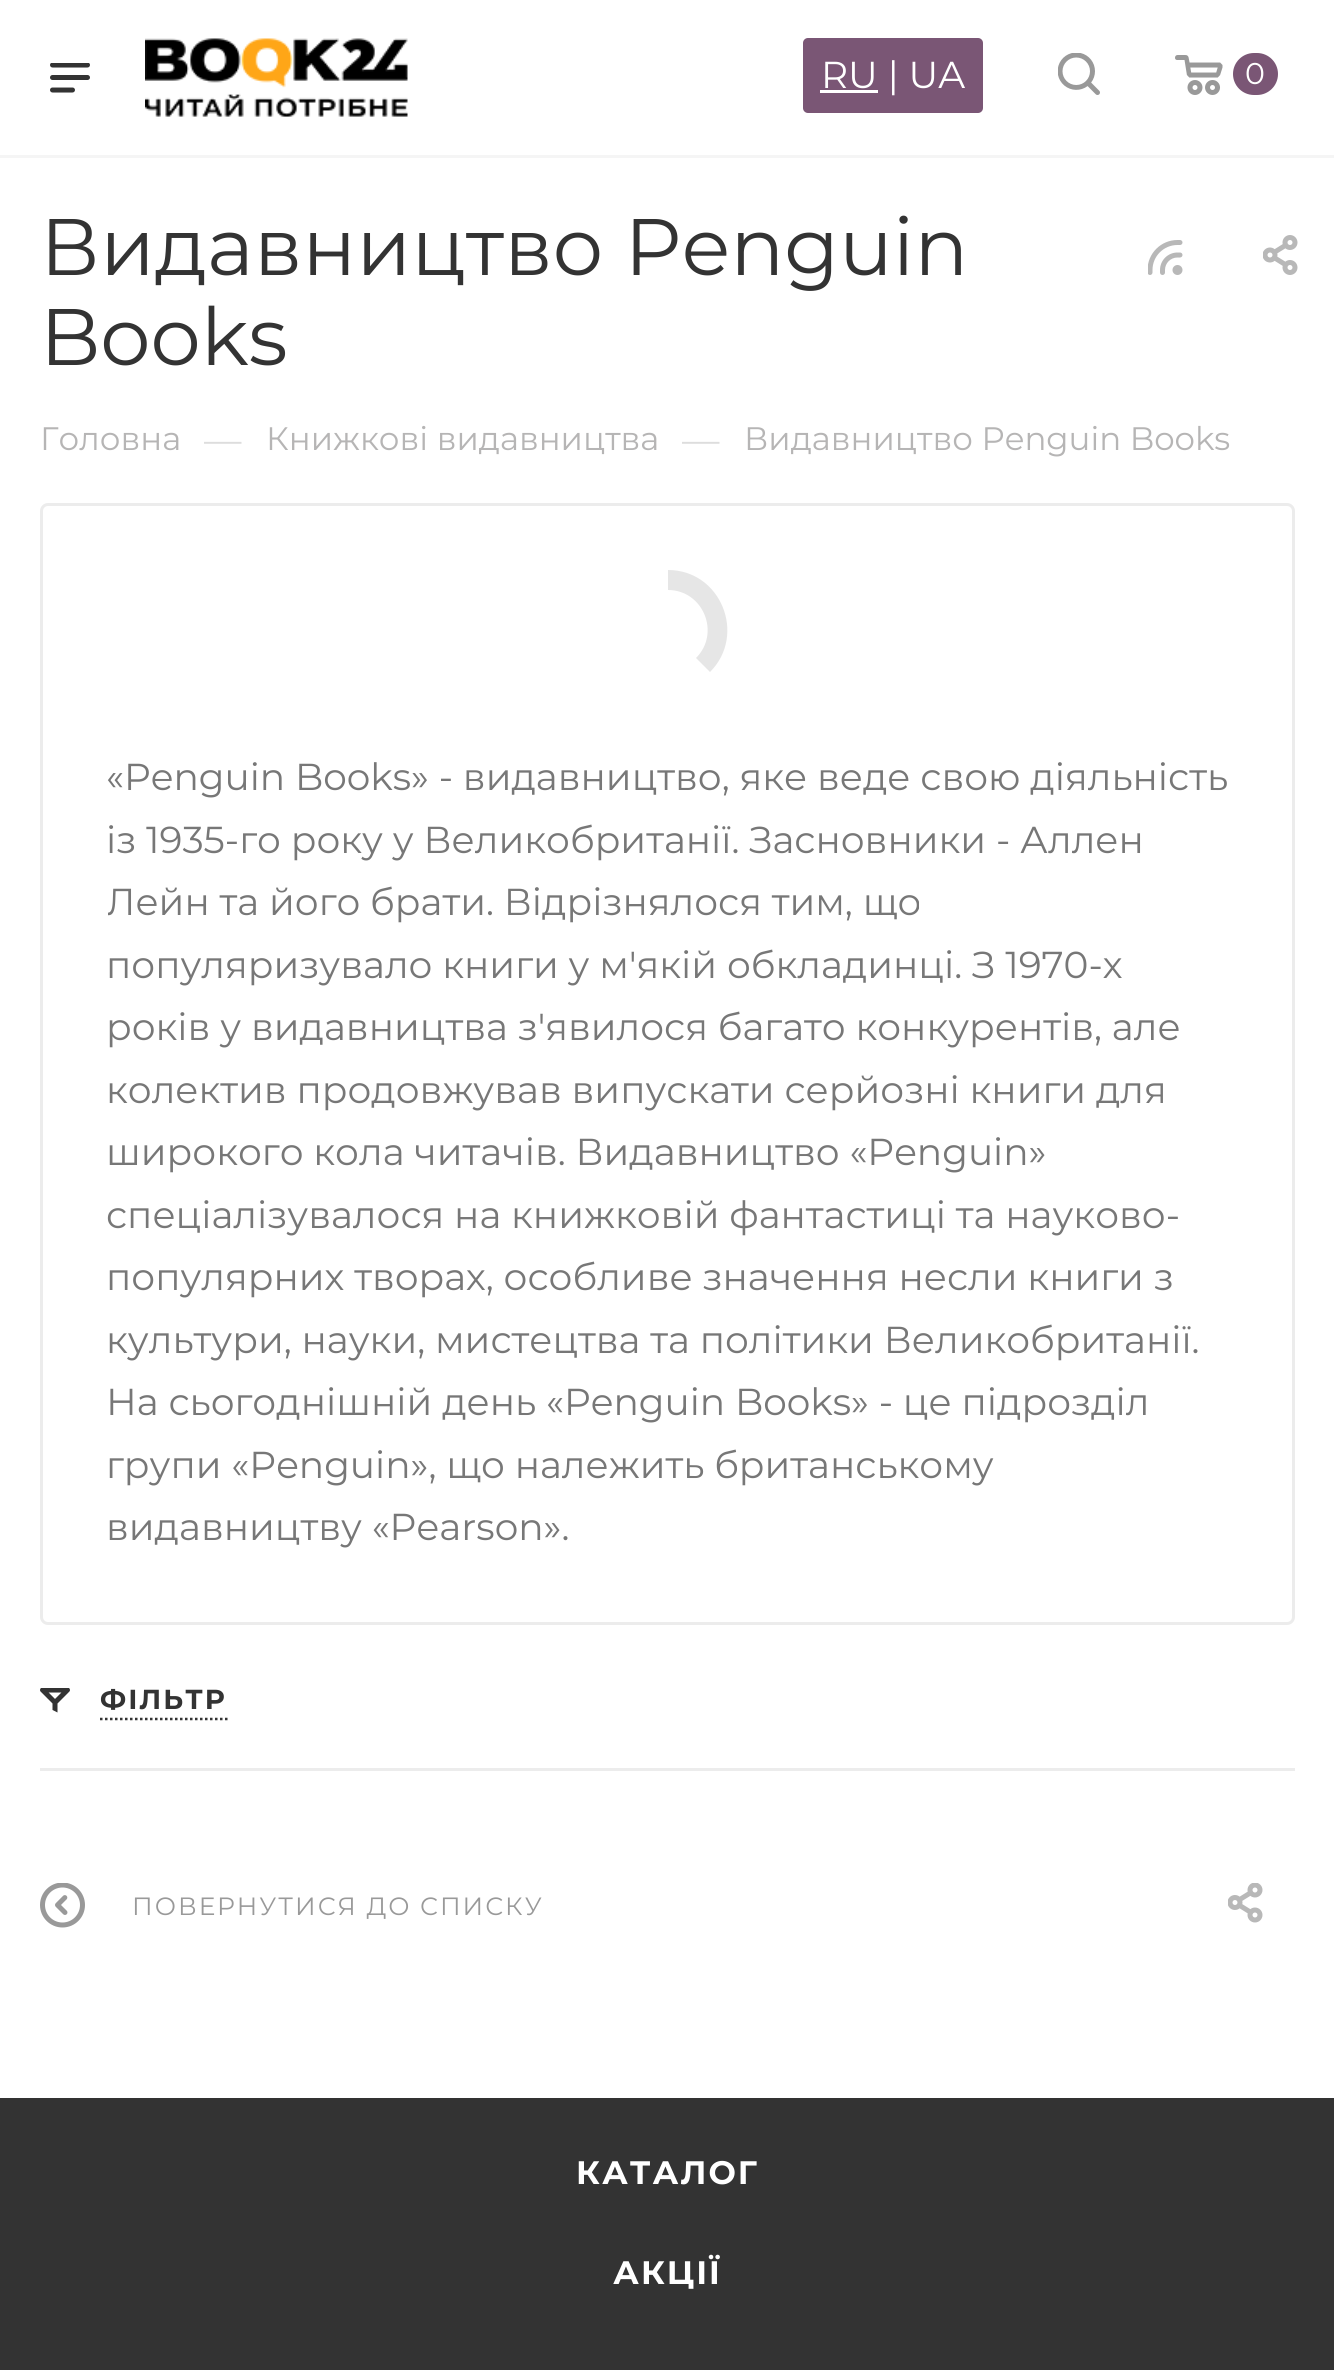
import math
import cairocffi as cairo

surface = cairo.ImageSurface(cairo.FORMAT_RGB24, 1334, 2370)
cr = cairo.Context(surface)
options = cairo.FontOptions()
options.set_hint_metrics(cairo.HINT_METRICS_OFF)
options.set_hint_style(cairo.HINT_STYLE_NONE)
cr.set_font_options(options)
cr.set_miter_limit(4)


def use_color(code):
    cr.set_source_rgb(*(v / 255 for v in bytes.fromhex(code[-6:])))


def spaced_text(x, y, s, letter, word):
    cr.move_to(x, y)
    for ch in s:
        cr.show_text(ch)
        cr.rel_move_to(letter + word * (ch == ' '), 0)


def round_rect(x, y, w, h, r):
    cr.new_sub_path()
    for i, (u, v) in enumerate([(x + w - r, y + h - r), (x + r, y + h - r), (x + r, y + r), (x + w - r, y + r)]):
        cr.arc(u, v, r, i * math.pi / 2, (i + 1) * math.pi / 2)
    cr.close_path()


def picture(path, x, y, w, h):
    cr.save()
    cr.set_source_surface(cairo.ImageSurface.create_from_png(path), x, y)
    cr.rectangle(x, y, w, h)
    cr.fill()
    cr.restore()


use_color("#ffffff")
cr.paint()
use_color("#f5f5f5")
cr.rectangle(0, 155, 1334, 3)
cr.fill()
picture("img1.png", 50, 63, 40, 30)
picture("img2.png", 145, 38, 263, 79)
use_color("#7a5675")
round_rect(803, 38, 180, 75, 5)
cr.fill()
use_color("#ffffff")
cr.rectangle(820, 90, 58, 3)
cr.fill()
cr.select_font_face("Montserrat")
cr.set_font_size(37.5)
cr.move_to(821, 88)
cr.show_text("RU | UA")
picture("img3.png", 1058, 53, 42, 42)
picture("img4.png", 1175, 55, 48, 40)
use_color("#7a5675")
round_rect(1233, 53, 45, 42, 21)
cr.fill()
cr.set_font_size(30)
use_color("#ffffff")
cr.move_to(1245, 84)
cr.show_text("0")
cr.set_font_size(80)
use_color("#333333")
cr.move_to(40, 275)
cr.show_text("Видавництво Penguin")
cr.move_to(40, 365)
cr.show_text("Books")
picture("img5.png", 1148, 240, 35, 35)
picture("img6.png", 1263, 235, 35, 40)
cr.set_font_size(32.5)
use_color("#b6b5b5")
cr.move_to(40, 450)
cr.show_text("Головна")
cr.set_font_size(37.5)
use_color("#dddddd")
cr.move_to(204, 453)
cr.show_text("—")
cr.set_font_size(32.5)
use_color("#b6b5b5")
cr.move_to(266, 450)
cr.show_text("Книжкові видавництва")
cr.set_font_size(37.5)
use_color("#dddddd")
cr.move_to(682, 453)
cr.show_text("—")
cr.set_font_size(32.5)
use_color("#b6b5b5")
cr.move_to(744, 450)
cr.show_text("Видавництво Penguin Books")
round_rect(41.5, 504.5, 1252, 1119, 6.5)
use_color("#ececec")
cr.set_line_width(3)
cr.stroke()
use_color("#e6e6e6")
cr.new_path()
cr.move_to(668, 570)
cr.curve_to(721, 570, 747, 635, 710, 672)
cr.line_to(696, 658)
cr.curve_to(721, 633, 703, 590, 668, 590)
cr.close_path()
cr.fill()
cr.set_font_size(37.5)
use_color("#777777")
cr.move_to(106, 790)
cr.show_text("«Penguin Books» - видавництво, яке веде свою діяльність")
cr.move_to(106, 853)
cr.show_text("із 1935-го року у Великобританії. Засновники - Аллен")
cr.save()
cr.rectangle(108, 745, 1122, 813)
cr.clip()
cr.move_to(106, 915)
cr.show_text("Лейн та його брати. Відрізнялося тим, що")
cr.restore()
cr.move_to(106, 978)
cr.show_text("популяризувало книги у м'якій обкладинці. З 1970-х")
cr.move_to(106, 1040)
cr.show_text("років у видавництва з'явилося багато конкурентів, але")
cr.move_to(106, 1103)
cr.show_text("колектив продовжував випускати серйозні книги для")
cr.move_to(106, 1165)
cr.show_text("широкого кола читачів. Видавництво «Penguin»")
cr.move_to(106, 1228)
cr.show_text("спеціалізувалося на книжковій фантастиці та науково-")
cr.move_to(106, 1290)
cr.show_text("популярних творах, особливе значення несли книги з")
cr.move_to(106, 1353)
cr.show_text("культури, науки, мистецтва та політики Великобританії.")
cr.move_to(106, 1415)
cr.show_text("На сьогоднішній день «Penguin Books» - це підрозділ")
cr.move_to(106, 1478)
cr.show_text("групи «Penguin», що належить британському")
cr.move_to(106, 1540)
cr.show_text("видавництву «Pearson».")
use_color("#ececec")
cr.rectangle(40, 1768, 1255, 3)
cr.fill()
picture("img7.png", 40, 1688, 30, 25)
cr.select_font_face("Montserrat", cairo.FONT_SLANT_NORMAL, cairo.FONT_WEIGHT_BOLD)
cr.set_font_size(27.5)
use_color("#333333")
spaced_text(100, 1709, "ФІЛЬТР", 2, 0)
cr.new_path()
cr.move_to(100, 1719)
cr.line_to(227.5, 1719)
cr.set_line_width(2.5)
cr.set_dash([2.5, 2.5])
cr.stroke()
picture("img8.png", 40, 1883, 45, 45)
cr.select_font_face("Montserrat")
cr.set_font_size(25)
use_color("#999999")
spaced_text(132, 1915, "ПОВЕРНУТИСЯ ДО СПИСКУ", 2, 0)
picture("img9.png", 1228, 1883, 35, 40)
use_color("#333333")
cr.rectangle(0, 2098, 1334, 272)
cr.fill()
cr.select_font_face("Montserrat", cairo.FONT_SLANT_NORMAL, cairo.FONT_WEIGHT_BOLD)
cr.set_font_size(32.5)
use_color("#ffffff")
spaced_text(576, 2184, "КАТАЛОГ", 2, 0)
spaced_text(613, 2284, "АКЦІЇ", 2, 0)
surface.write_to_png("result.png")
